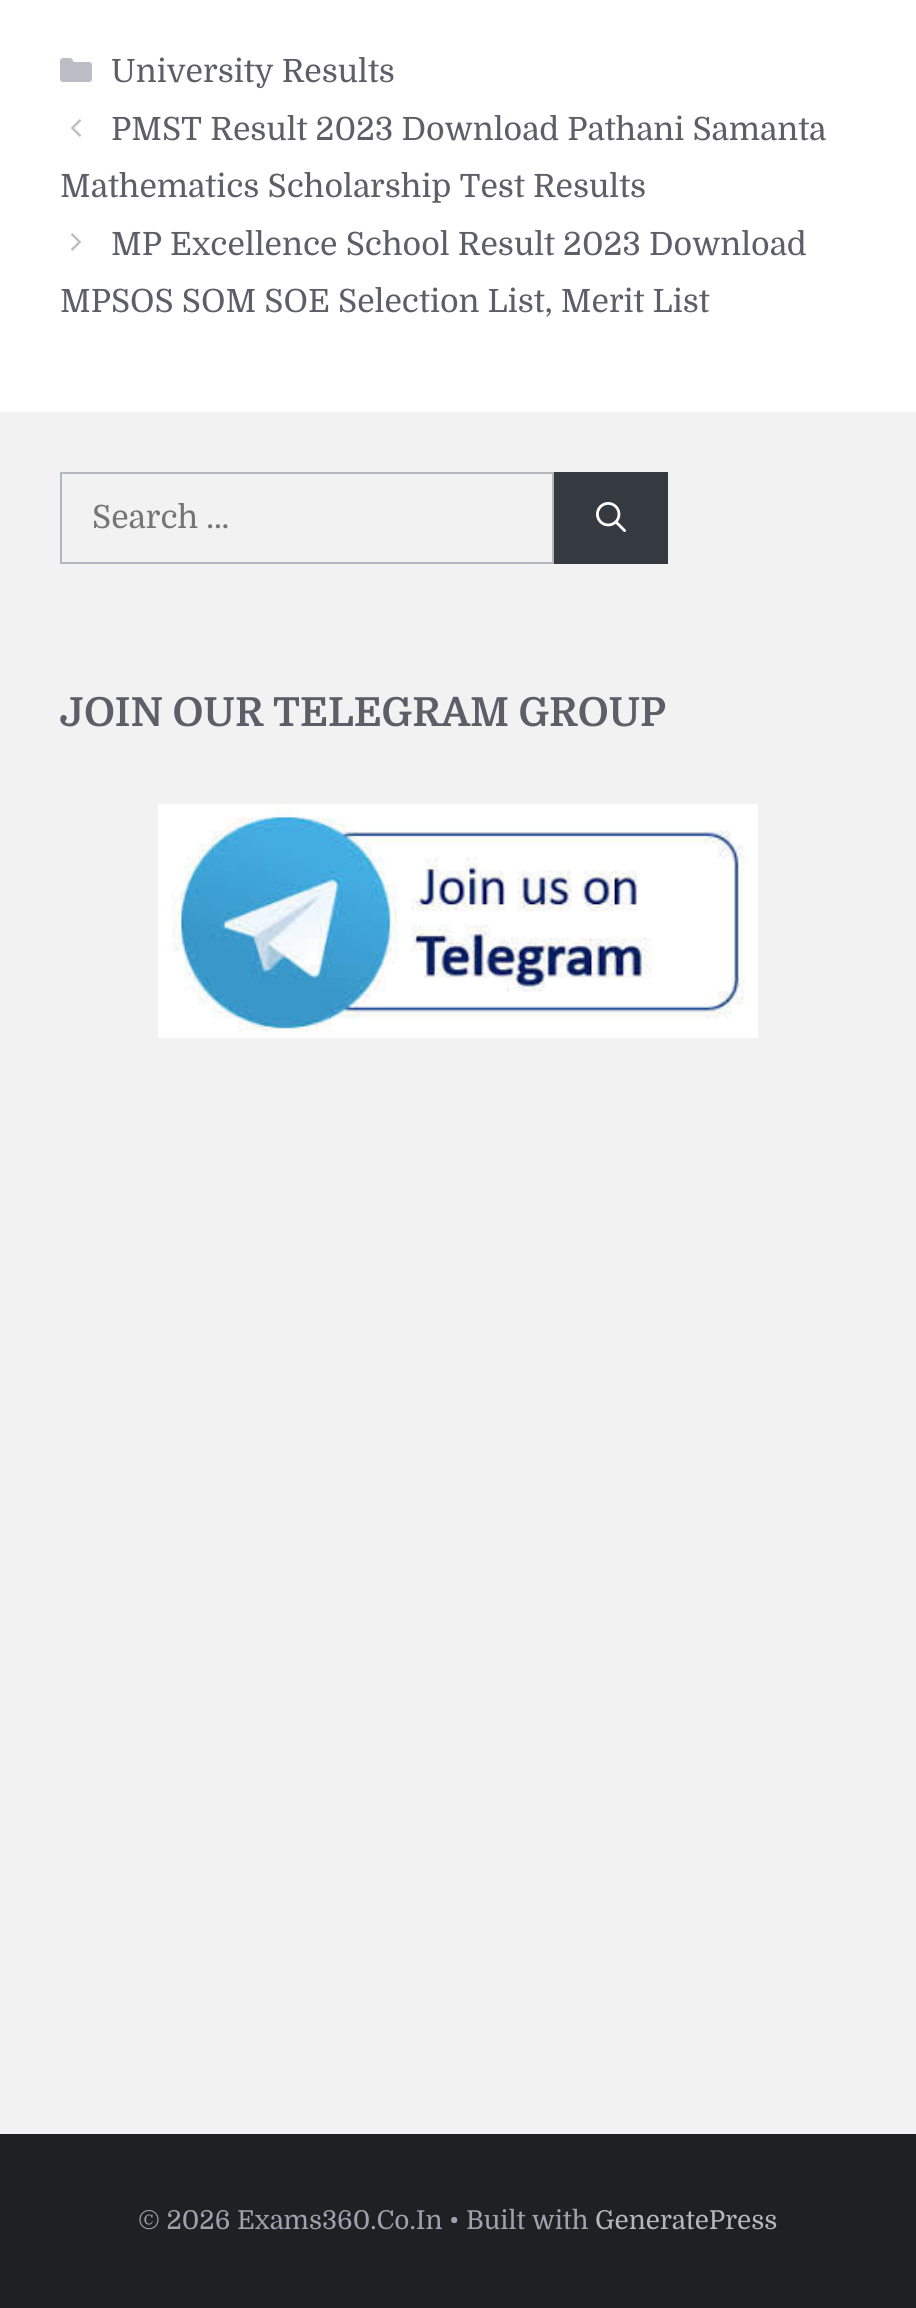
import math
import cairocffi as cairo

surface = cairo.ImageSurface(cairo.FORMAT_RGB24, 916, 2308)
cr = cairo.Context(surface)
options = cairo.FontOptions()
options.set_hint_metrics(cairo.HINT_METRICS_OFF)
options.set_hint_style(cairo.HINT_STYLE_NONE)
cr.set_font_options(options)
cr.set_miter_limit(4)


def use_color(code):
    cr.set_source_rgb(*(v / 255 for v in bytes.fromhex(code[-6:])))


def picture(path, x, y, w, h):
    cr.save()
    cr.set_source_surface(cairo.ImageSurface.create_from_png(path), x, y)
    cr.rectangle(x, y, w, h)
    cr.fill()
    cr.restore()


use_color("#ffffff")
cr.paint()
picture("img1.png", 60, 58, 32, 24)
cr.select_font_face("Domine")
cr.set_font_size(32)
use_color("#5e5e69")
cr.move_to(111, 82)
cr.show_text("University Results")
picture("img2.png", 71, 119, 10, 18)
cr.move_to(111, 140)
cr.show_text("PMST Result 2023 Download Pathani Samanta")
cr.move_to(60, 197)
cr.show_text("Mathematics Scholarship Test Results")
picture("img3.png", 71, 233, 10, 18)
cr.move_to(111, 255)
cr.show_text("MP Excellence School Result 2023 Download")
cr.move_to(60, 312)
cr.show_text("MPSOS SOM SOE Selection List, Merit List")
use_color("#f2f2f2")
cr.rectangle(0, 412, 916, 1722)
cr.fill()
cr.rectangle(61, 473, 492, 90)
use_color("#b5b7bf")
cr.stroke()
use_color("#757575")
cr.move_to(92, 528)
cr.show_text("Search …")
use_color("#343a40")
cr.rectangle(554, 472, 114, 92)
cr.fill()
picture("img4.png", 596, 502, 30, 30)
cr.select_font_face("Domine", cairo.FONT_SLANT_NORMAL, cairo.FONT_WEIGHT_BOLD)
cr.set_font_size(40)
use_color("#5e5e69")
cr.move_to(60, 726)
cr.show_text("JOIN OUR TELEGRAM GROUP")
picture("img5.png", 158, 804, 600, 234)
use_color("#1f2024")
cr.rectangle(0, 2134, 916, 174)
cr.fill()
cr.select_font_face("Domine")
cr.set_font_size(26)
use_color("#a0a1ad")
cr.move_to(138, 2229)
cr.show_text("© 2026 Exams360.Co.In • Built with")
use_color("#b5b7bf")
cr.move_to(595, 2229)
cr.show_text("GeneratePress")
surface.write_to_png("result.png")
